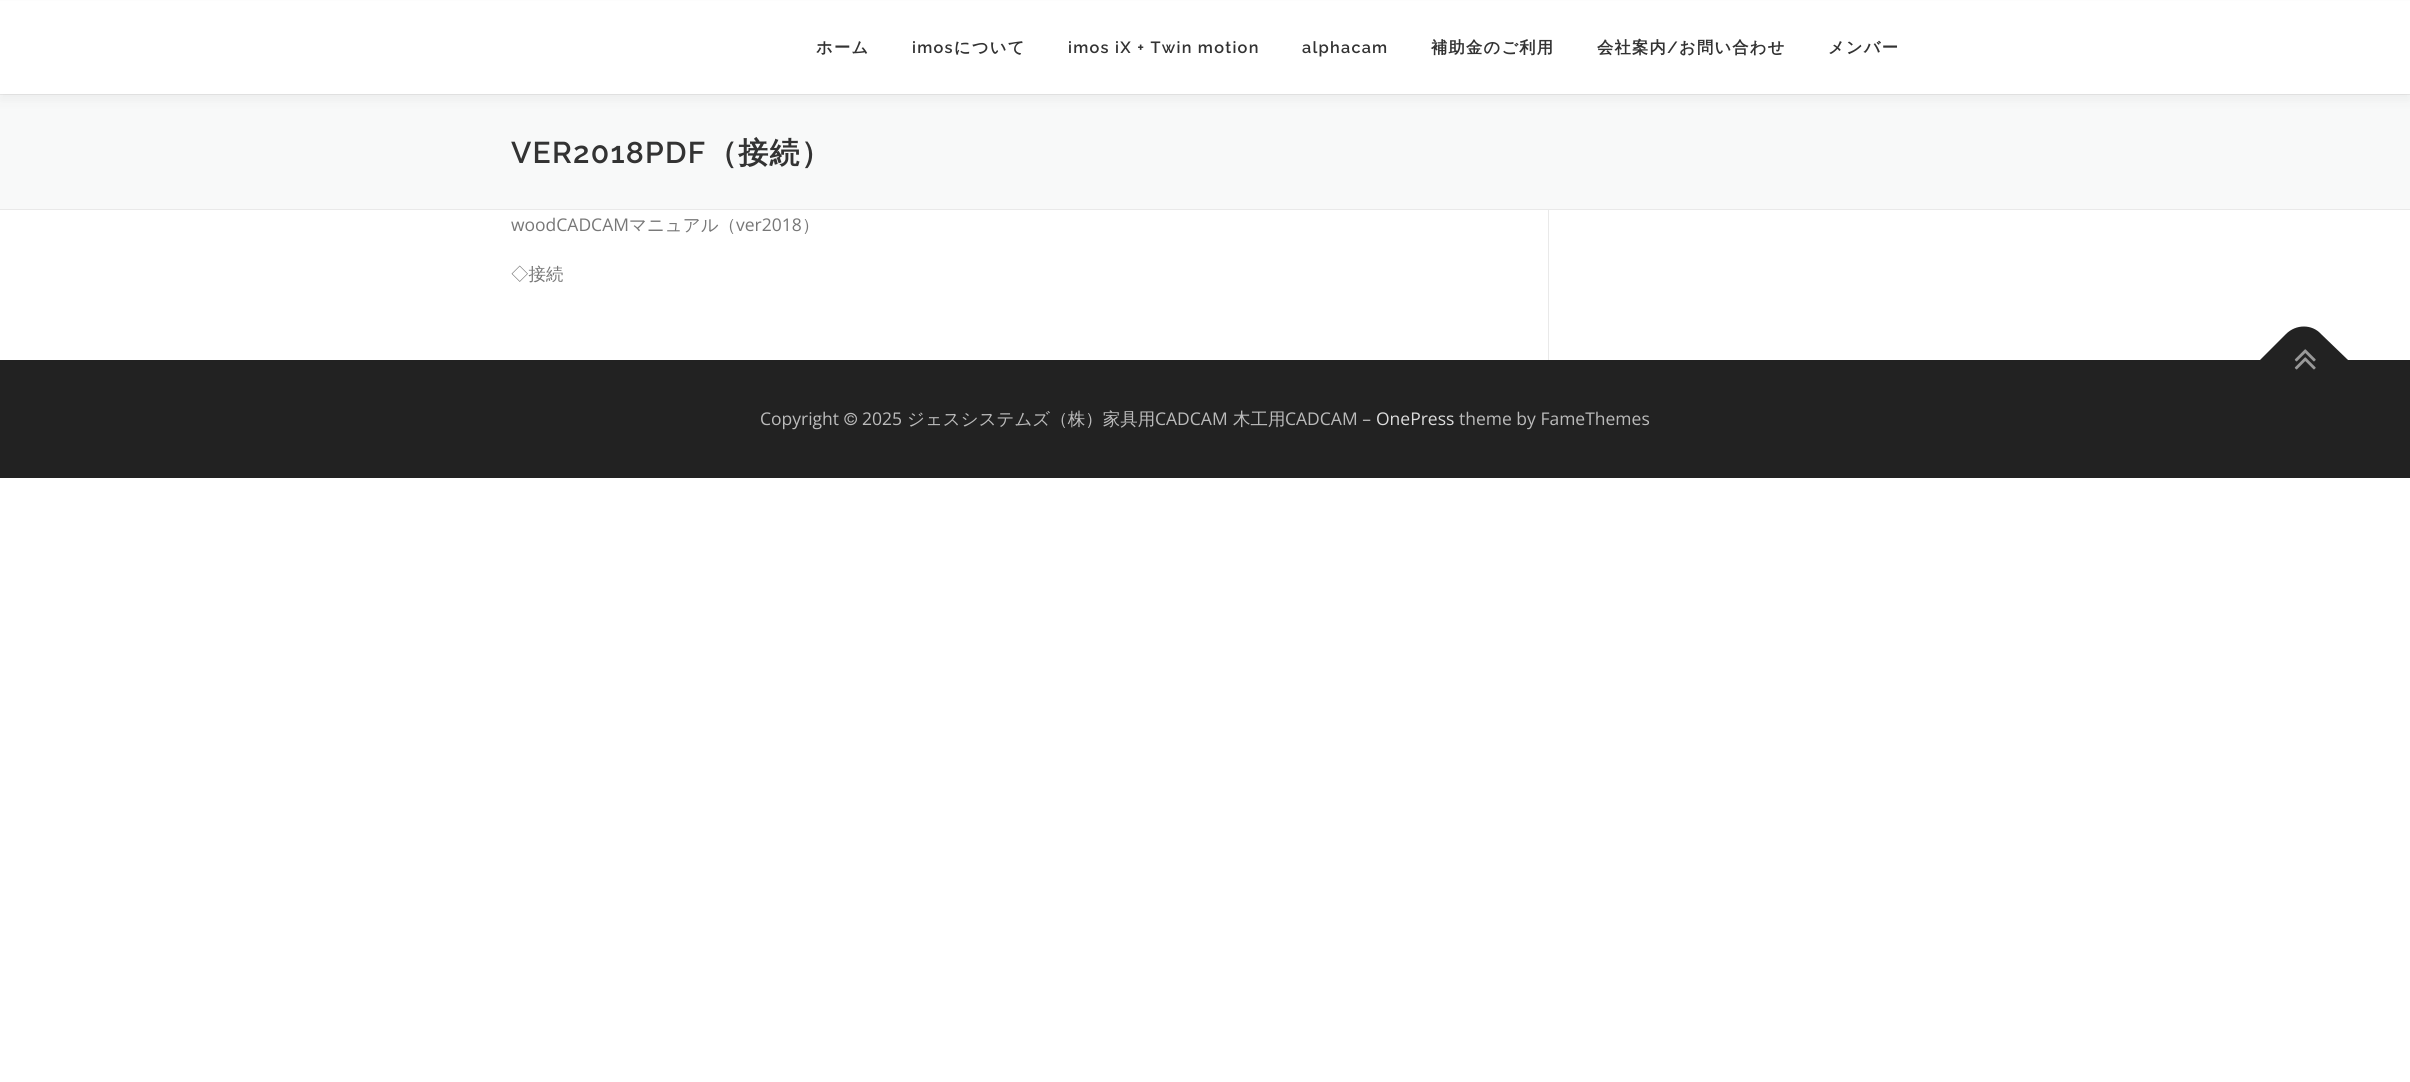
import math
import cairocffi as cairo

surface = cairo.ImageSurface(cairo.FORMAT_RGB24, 2410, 1082)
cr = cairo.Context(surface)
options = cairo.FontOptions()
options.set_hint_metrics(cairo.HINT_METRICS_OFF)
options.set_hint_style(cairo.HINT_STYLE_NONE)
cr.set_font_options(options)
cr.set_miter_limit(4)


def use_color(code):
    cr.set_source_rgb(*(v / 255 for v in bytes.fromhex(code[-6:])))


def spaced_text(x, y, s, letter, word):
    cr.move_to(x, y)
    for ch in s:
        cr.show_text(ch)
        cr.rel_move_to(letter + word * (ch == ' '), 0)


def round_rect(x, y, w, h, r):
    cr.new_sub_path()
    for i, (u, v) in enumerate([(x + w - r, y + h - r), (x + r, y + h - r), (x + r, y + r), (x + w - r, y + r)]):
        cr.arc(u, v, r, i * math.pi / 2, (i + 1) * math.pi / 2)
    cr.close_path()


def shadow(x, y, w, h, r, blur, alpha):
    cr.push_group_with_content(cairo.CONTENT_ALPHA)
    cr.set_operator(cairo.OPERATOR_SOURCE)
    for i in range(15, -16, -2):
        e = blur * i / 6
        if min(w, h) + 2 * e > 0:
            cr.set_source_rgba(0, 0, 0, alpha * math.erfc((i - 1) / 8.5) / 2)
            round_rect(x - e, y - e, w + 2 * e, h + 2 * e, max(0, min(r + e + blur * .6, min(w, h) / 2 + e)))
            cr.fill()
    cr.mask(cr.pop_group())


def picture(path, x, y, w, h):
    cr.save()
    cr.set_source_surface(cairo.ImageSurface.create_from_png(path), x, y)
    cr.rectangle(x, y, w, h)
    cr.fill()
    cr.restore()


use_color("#ffffff")
cr.paint()
use_color("#f8f9f9")
cr.rectangle(0, 95, 2410, 114)
cr.fill()
use_color("#e9e9e9")
cr.rectangle(0, 94, 2410, 1)
cr.fill()
use_color("#323232")
shadow(0, 6, 2410, 94, 0, 6, 0.06)
use_color("#ffffff")
cr.rectangle(0, 1, 2410, 93)
cr.fill()
cr.select_font_face("WenQuanYi Zen Hei", cairo.FONT_SLANT_NORMAL, cairo.FONT_WEIGHT_BOLD)
cr.set_font_size(16.25)
use_color("#333333")
spaced_text(816, 53, "ホーム", 1.25, 0)
cr.select_font_face("Raleway SemiBold")
spaced_text(912, 53, "imos", 1.25, 0)
cr.select_font_face("WenQuanYi Zen Hei", cairo.FONT_SLANT_NORMAL, cairo.FONT_WEIGHT_BOLD)
spaced_text(954, 53, "について", 1.25, 0)
cr.select_font_face("Raleway SemiBold")
spaced_text(1068, 53, "imos iX + Twin motion", 1.25, 0)
spaced_text(1302, 53, "alphacam", 1.25, 0)
cr.select_font_face("WenQuanYi Zen Hei", cairo.FONT_SLANT_NORMAL, cairo.FONT_WEIGHT_BOLD)
spaced_text(1431, 53, "補助金のご利用", 1.25, 0)
spaced_text(1597, 53, "会社案内", 1.25, 0)
cr.select_font_face("Raleway SemiBold")
spaced_text(1667, 53, "/", 1.25, 0)
cr.select_font_face("WenQuanYi Zen Hei", cairo.FONT_SLANT_NORMAL, cairo.FONT_WEIGHT_BOLD)
spaced_text(1679, 53, "お問い合わせ", 1.25, 0)
spaced_text(1828, 53, "メンバー", 1.25, 0)
use_color("#e9e9e9")
cr.rectangle(0, 209, 2410, 1)
cr.fill()
cr.select_font_face("Raleway SemiBold")
cr.set_font_size(30)
use_color("#333333")
spaced_text(511, 163, "VER2018PDF", 1.25, 0)
cr.select_font_face("WenQuanYi Zen Hei", cairo.FONT_SLANT_NORMAL, cairo.FONT_WEIGHT_BOLD)
spaced_text(707, 163, "（接続）", 1.25, 0)
cr.select_font_face("Open Sans")
cr.set_font_size(17.5)
use_color("#777777")
cr.move_to(511, 231)
cr.show_text("woodCADCAM")
cr.select_font_face("WenQuanYi Zen Hei Medium")
cr.move_to(629, 231)
cr.show_text("マニュアル（")
cr.select_font_face("Open Sans")
cr.move_to(736, 231)
cr.show_text("ver2018")
cr.select_font_face("WenQuanYi Zen Hei Medium")
cr.move_to(802, 231)
cr.show_text("）")
cr.move_to(511, 280)
cr.show_text("◇接続")
use_color("#e9e9e9")
cr.rectangle(1548, 210, 1, 150)
cr.fill()
use_color("#222222")
cr.rectangle(0, 360, 2410, 118)
cr.fill()
cr.new_path()
cr.move_to(2260, 360)
cr.line_to(2286, 334)
cr.curve_to(2296, 324, 2312, 324, 2321, 334)
cr.line_to(2348, 360)
cr.line_to(2304, 404)
cr.close_path()
cr.fill()
picture("img1.png", 2294, 349, 22, 21)
cr.select_font_face("Open Sans")
use_color("#bbbbbb")
cr.move_to(760, 425)
cr.show_text("Copyright")
cr.select_font_face("WenQuanYi Zen Hei Medium")
cr.move_to(844, 425)
cr.show_text("©")
cr.select_font_face("Open Sans")
cr.move_to(862, 425)
cr.show_text("2025")
cr.select_font_face("WenQuanYi Zen Hei Medium")
cr.move_to(907, 425)
cr.show_text("ジェスシステムズ（株）家具用")
cr.select_font_face("Open Sans")
cr.move_to(1155, 425)
cr.show_text("CADCAM")
cr.select_font_face("WenQuanYi Zen Hei Medium")
cr.move_to(1233, 425)
cr.show_text("木工用")
cr.select_font_face("Open Sans")
cr.move_to(1285, 425)
cr.show_text("CADCAM –")
use_color("#dddddd")
cr.move_to(1376, 425)
cr.show_text("OnePress")
use_color("#bbbbbb")
cr.move_to(1459, 425)
cr.show_text("theme by FameThemes")
surface.write_to_png("result.png")
